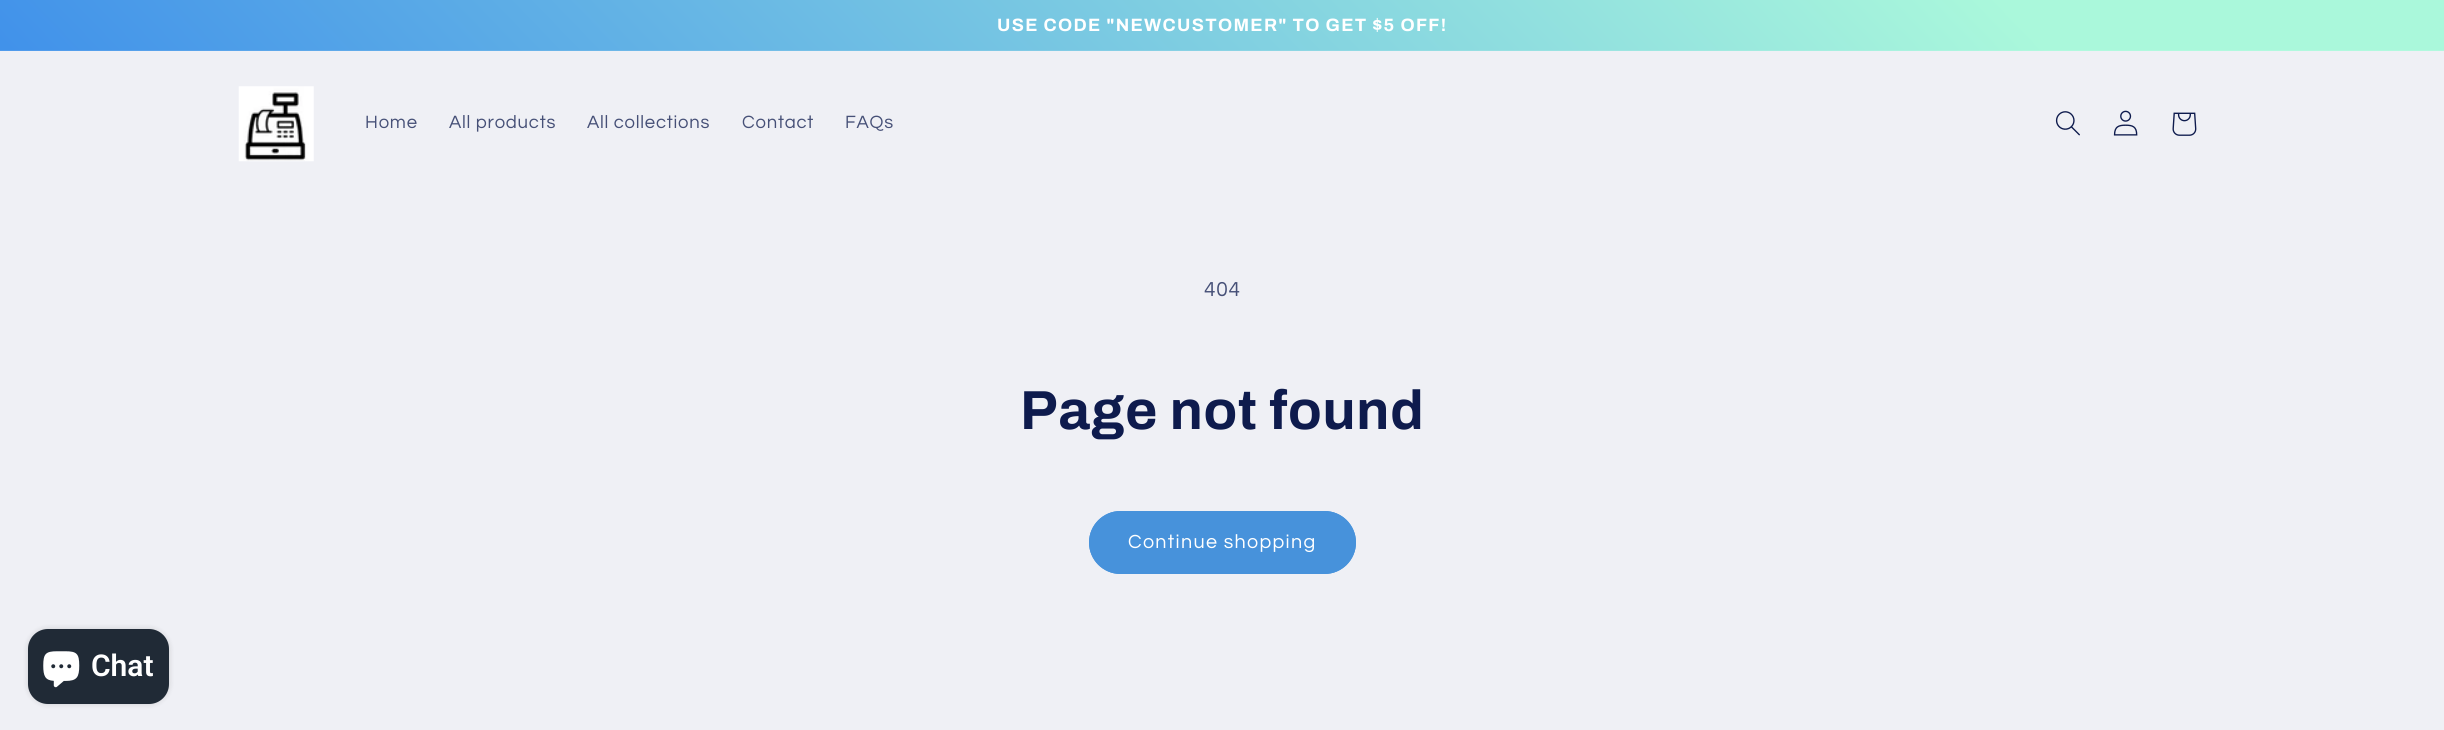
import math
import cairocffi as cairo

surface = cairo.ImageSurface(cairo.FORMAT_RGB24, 2444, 730)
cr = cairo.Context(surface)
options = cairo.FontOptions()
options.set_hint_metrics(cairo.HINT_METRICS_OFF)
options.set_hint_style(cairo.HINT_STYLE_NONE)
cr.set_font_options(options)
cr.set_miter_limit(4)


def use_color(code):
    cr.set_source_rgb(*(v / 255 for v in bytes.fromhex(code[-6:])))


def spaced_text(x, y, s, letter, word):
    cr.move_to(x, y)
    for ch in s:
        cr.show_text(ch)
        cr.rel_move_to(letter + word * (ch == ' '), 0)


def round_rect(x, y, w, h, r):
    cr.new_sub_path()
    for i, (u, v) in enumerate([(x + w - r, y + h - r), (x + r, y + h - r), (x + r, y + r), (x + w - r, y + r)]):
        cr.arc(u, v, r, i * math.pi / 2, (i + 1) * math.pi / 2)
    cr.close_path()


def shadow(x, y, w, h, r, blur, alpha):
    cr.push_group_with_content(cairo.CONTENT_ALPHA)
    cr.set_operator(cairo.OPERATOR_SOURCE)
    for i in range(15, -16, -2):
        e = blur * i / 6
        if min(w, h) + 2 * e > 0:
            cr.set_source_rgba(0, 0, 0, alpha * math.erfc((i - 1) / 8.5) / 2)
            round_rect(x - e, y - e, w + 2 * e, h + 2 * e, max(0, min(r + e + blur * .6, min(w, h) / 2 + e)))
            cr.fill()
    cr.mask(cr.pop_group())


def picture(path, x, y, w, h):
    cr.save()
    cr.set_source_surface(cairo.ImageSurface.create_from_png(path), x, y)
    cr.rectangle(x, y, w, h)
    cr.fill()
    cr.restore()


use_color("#eff0f5")
cr.paint()
gradient = cairo.LinearGradient(408, 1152, 2037, -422)
gradient.add_color_stop_rgba(0.13, 0.204, 0.522, 0.925, 1)
gradient.add_color_stop_rgba(0.86, 0.667, 0.973, 0.859, 1)
cr.set_source(gradient)
cr.rectangle(0, 0, 2444, 50)
cr.fill()
gradient = cairo.LinearGradient(408, 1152, 2037, -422)
gradient.add_color_stop_rgba(0.13, 0.267, 0.561, 0.933, 1)
gradient.add_color_stop_rgba(0.86, 0.694, 0.976, 0.871, 1)
cr.set_source(gradient)
cr.rectangle(0, 50, 2444, 1)
cr.fill()
cr.select_font_face("Archivo", cairo.FONT_SLANT_NORMAL, cairo.FONT_WEIGHT_BOLD)
cr.set_font_size(17.9)
use_color("#ffffff")
spaced_text(997, 31, "USE CODE \"NEWCUSTOMER\" TO GET $5 OFF!", 1.3, 0)
picture("img1.png", 238, 86, 76, 76)
cr.select_font_face("Questrial")
cr.set_font_size(18.5)
use_color("#465077")
spaced_text(365, 128, "Home", 0.75, 0)
spaced_text(449, 128, "All products", 0.75, 0)
spaced_text(587, 128, "All collections", 0.75, 0)
spaced_text(742, 128, "Contact", 0.75, 0)
spaced_text(845, 128, "FAQs", 0.75, 0)
picture("img2.png", 2055, 111, 25, 25)
picture("img3.png", 2113, 110, 25, 26)
picture("img4.png", 2172, 112, 25, 24)
cr.set_font_size(21)
spaced_text(1204, 296, "404", 0.75, 0)
cr.select_font_face("Archivo", cairo.FONT_SLANT_NORMAL, cairo.FONT_WEIGHT_BOLD)
cr.set_font_size(55)
use_color("#0e1b4d")
spaced_text(1020, 429, "Page not found", 0.8, 0)
use_color("#4792db")
round_rect(1089, 511, 267, 63, 31.5)
cr.fill()
round_rect(1089.5, 511.5, 266, 62, 31)
cr.set_line_width(1)
cr.stroke()
cr.select_font_face("Questrial")
cr.set_font_size(19.75)
use_color("#ffffff")
spaced_text(1128, 548, "Continue shopping", 1.3, 0)
use_color("#000000")
shadow(28, 629, 141, 75, 20, 3, 0.15)
use_color("#202a36")
round_rect(28, 629, 141, 75, 20)
cr.fill()
picture("img5.png", 43, 651, 37, 37)
cr.select_font_face("Roboto SemiBold")
cr.set_font_size(30)
use_color("#ffffff")
cr.move_to(91, 676)
cr.show_text("Chat")
surface.write_to_png("result.png")
